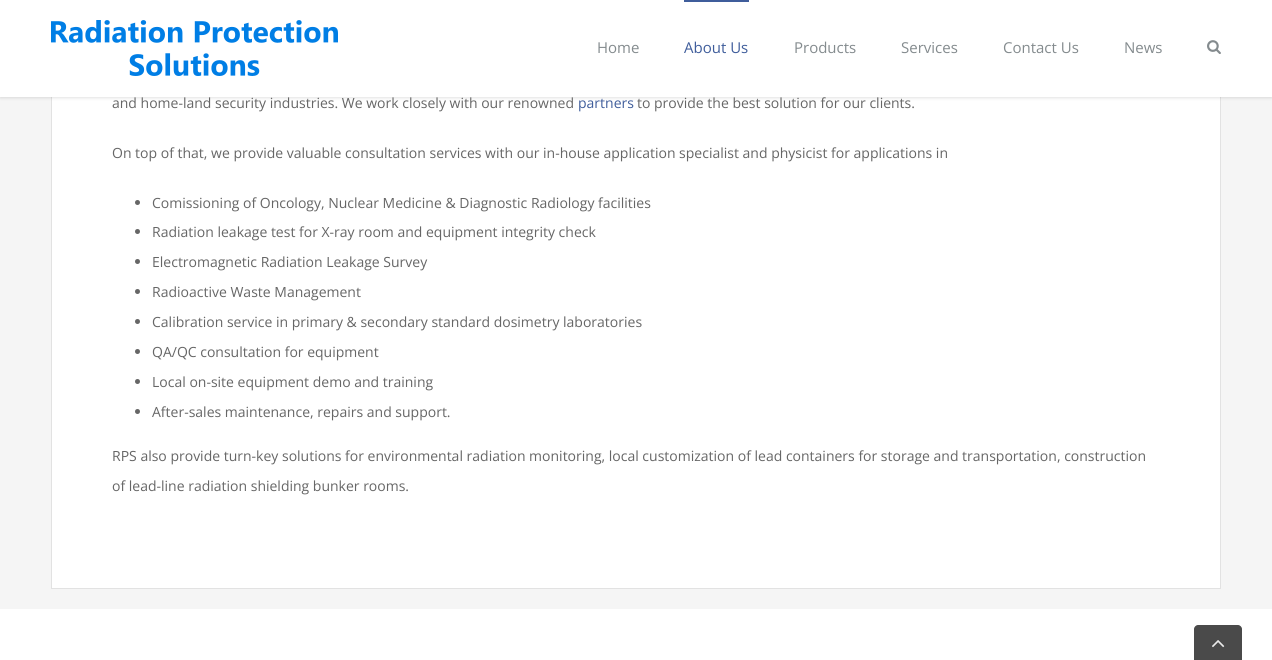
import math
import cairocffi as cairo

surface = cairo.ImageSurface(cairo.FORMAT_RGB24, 1272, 660)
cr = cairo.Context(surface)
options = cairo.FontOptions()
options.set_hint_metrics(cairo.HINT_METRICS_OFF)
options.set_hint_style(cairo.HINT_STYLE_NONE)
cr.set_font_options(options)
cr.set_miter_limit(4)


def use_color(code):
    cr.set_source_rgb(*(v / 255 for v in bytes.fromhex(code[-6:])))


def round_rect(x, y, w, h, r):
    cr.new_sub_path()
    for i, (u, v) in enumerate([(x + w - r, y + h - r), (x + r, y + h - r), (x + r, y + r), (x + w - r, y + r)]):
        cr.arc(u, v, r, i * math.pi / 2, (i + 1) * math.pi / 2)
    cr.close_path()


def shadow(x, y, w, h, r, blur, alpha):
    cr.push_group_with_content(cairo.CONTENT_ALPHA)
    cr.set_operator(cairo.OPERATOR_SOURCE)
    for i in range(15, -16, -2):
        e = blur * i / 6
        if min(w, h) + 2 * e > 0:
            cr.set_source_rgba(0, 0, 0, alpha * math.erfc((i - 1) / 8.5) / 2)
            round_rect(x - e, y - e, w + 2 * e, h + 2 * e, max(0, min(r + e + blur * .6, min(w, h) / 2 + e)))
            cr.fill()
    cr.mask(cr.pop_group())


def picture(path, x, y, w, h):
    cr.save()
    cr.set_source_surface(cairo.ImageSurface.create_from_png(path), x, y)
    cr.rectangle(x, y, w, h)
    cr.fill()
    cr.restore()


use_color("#f5f5f5")
cr.paint()
use_color("#ffffff")
cr.rectangle(52, 97, 1168, 491)
cr.fill()
cr.rectangle(51.5, -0.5, 1169, 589)
use_color("#e2e2e2")
cr.set_line_width(1)
cr.stroke()
use_color("#000000")
shadow(0, 1, 1272, 97, 0, 1.5, 0.12)
use_color("#ffffff")
cr.rectangle(0, 0, 1272, 97)
cr.fill()
picture("img1.png", 51, 20, 287, 56)
cr.select_font_face("Open Sans")
cr.set_font_size(15)
use_color("#848b8e")
cr.move_to(597, 53)
cr.show_text("Home")
use_color("#3f5d9b")
cr.rectangle(684, 0, 65, 2)
cr.fill()
cr.move_to(684, 53)
cr.show_text("About Us")
use_color("#848b8e")
cr.move_to(794, 53)
cr.show_text("Products")
cr.move_to(901, 53)
cr.show_text("Services")
cr.move_to(1003, 53)
cr.show_text("Contact Us")
cr.move_to(1124, 53)
cr.show_text("News")
picture("img2.png", 1207, 40, 14, 14)
cr.set_font_size(14)
use_color("#666666")
cr.move_to(112, 108)
cr.show_text("and home-land security industries. We work closely with our renowned")
use_color("#3f5d9b")
cr.move_to(578, 108)
cr.show_text("partners")
use_color("#666666")
cr.move_to(637, 108)
cr.show_text("to provide the best solution for our clients.")
cr.move_to(112, 158)
cr.show_text("On top of that, we provide valuable consultation services with our in-house application specialist and physicist for applications in")
cr.new_path()
cr.arc(137.5, 202.5, 2.5, 0, 2 * math.pi)
cr.fill()
cr.move_to(152, 208)
cr.show_text("Comissioning of Oncology, Nuclear Medicine & Diagnostic Radiology facilities")
cr.new_path()
cr.arc(137.5, 231.5, 2.5, 0, 2 * math.pi)
cr.fill()
cr.move_to(152, 237)
cr.show_text("Radiation leakage test for X-ray room and equipment integrity check")
cr.new_path()
cr.arc(137.5, 261.5, 2.5, 0, 2 * math.pi)
cr.fill()
cr.move_to(152, 267)
cr.show_text("Electromagnetic Radiation Leakage Survey")
cr.new_path()
cr.arc(137.5, 291.5, 2.5, 0, 2 * math.pi)
cr.fill()
cr.move_to(152, 297)
cr.show_text("Radioactive Waste Management")
cr.new_path()
cr.arc(137.5, 321.5, 2.5, 0, 2 * math.pi)
cr.fill()
cr.move_to(152, 327)
cr.show_text("Calibration service in primary & secondary standard dosimetry laboratories")
cr.new_path()
cr.arc(137.5, 351.5, 2.5, 0, 2 * math.pi)
cr.fill()
cr.move_to(152, 357)
cr.show_text("QA/QC consultation for equipment")
cr.new_path()
cr.arc(137.5, 381.5, 2.5, 0, 2 * math.pi)
cr.fill()
cr.move_to(152, 387)
cr.show_text("Local on-site equipment demo and training")
cr.new_path()
cr.arc(137.5, 411.5, 2.5, 0, 2 * math.pi)
cr.fill()
cr.move_to(152, 417)
cr.show_text("After-sales maintenance, repairs and support.")
cr.move_to(112, 461)
cr.show_text("RPS also provide turn-key solutions for environmental radiation monitoring, local customization of lead containers for storage and transportation, construction")
cr.move_to(112, 491)
cr.show_text("of lead-line radiation shielding bunker rooms.")
use_color("#ffffff")
cr.rectangle(0, 609, 1272, 51)
cr.fill()
use_color("#4a4a4a")
cr.new_path()
cr.move_to(1198, 625)
cr.line_to(1238, 625)
cr.curve_to(1240, 625, 1242, 627, 1242, 629)
cr.line_to(1242, 660)
cr.line_to(1194, 660)
cr.line_to(1194, 629)
cr.curve_to(1194, 627, 1196, 625, 1198, 625)
cr.close_path()
cr.fill()
picture("img3.png", 1212, 640, 13, 8)
surface.write_to_png("result.png")
